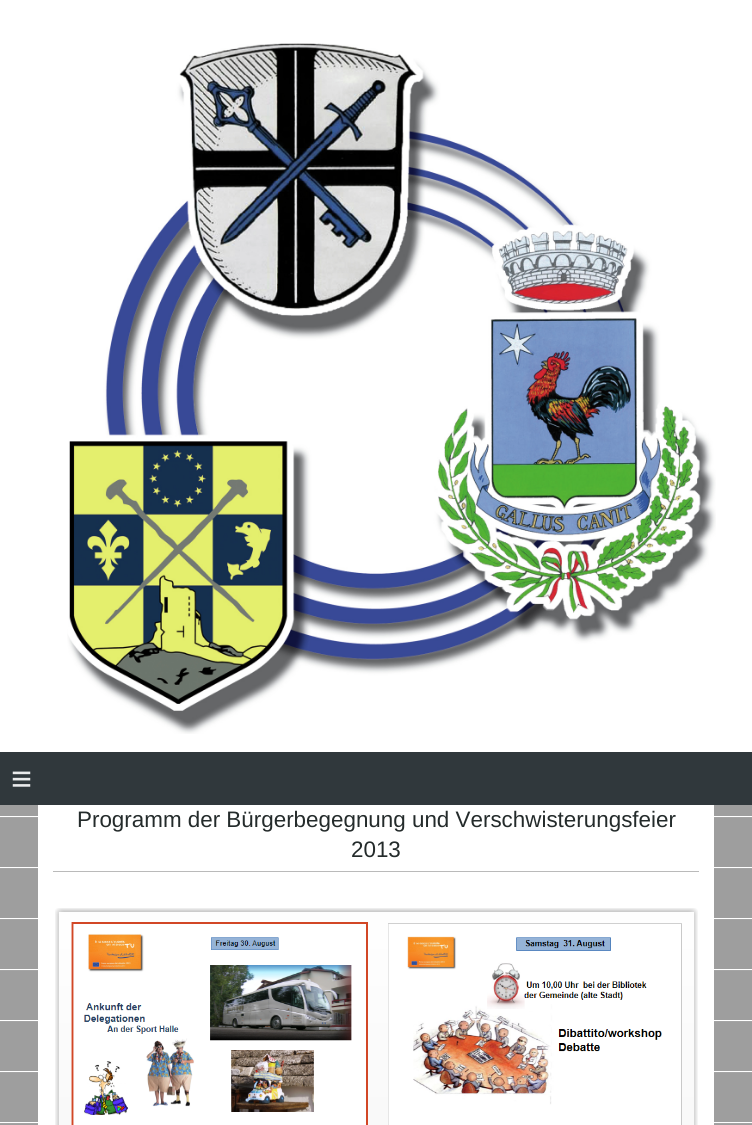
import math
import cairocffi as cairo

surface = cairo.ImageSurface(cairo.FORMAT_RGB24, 752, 1125)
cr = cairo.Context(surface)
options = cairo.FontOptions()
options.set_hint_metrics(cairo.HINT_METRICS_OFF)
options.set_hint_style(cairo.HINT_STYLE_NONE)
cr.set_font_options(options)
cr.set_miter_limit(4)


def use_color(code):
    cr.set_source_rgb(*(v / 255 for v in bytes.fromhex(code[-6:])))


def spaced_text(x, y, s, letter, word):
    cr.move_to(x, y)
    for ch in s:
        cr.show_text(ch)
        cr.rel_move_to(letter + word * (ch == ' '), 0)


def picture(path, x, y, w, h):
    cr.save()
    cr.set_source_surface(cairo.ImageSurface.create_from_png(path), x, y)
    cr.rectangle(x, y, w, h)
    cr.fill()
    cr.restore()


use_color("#9e9e9e")
cr.paint()
picture("img1.png", 0, 816, 752, 308)
use_color("#ffffff")
cr.rectangle(0, 0, 752, 752)
cr.fill()
picture("img2.png", 67, 43, 649, 691)
use_color("#30383c")
cr.rectangle(0, 752, 752, 53)
cr.fill()
cr.select_font_face("Liberation Sans")
cr.set_font_size(36)
use_color("#eaebec")
spaced_text(11, 791, "≡", 10, 0)
use_color("#ffffff")
cr.rectangle(38, 805, 676, 320)
cr.fill()
cr.set_font_size(22.4)
use_color("#242b2b")
cr.move_to(77, 827)
cr.show_text("Programm der Bürgerbegegnung und Verschwisterungsfeier")
cr.move_to(351, 857)
cr.show_text("2013")
use_color("#bababa")
cr.rectangle(53, 871, 646, 1)
cr.fill()
picture("img3.png", 55, 908, 643, 217)
surface.write_to_png("result.png")
